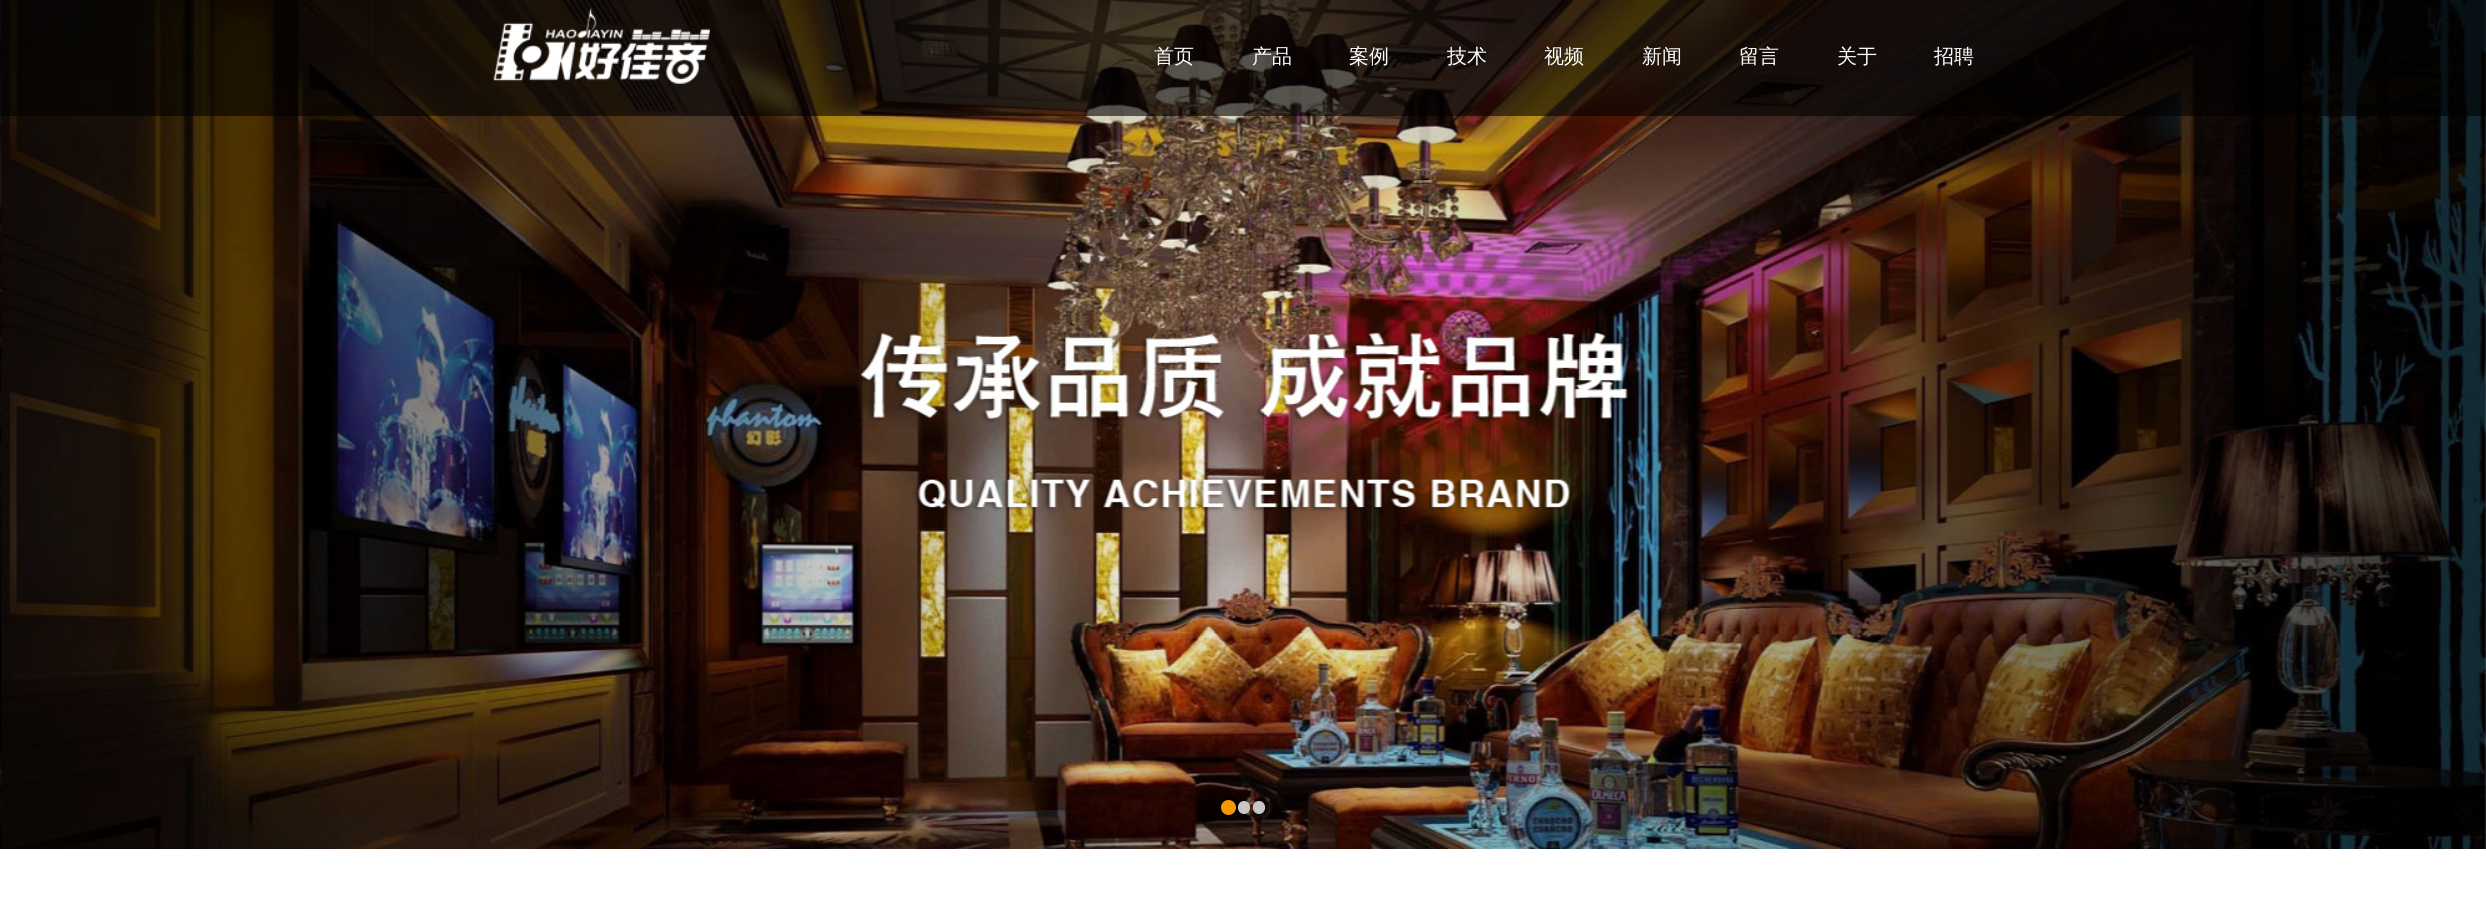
import math
import cairocffi as cairo

surface = cairo.ImageSurface(cairo.FORMAT_RGB24, 2486, 919)
cr = cairo.Context(surface)
options = cairo.FontOptions()
options.set_hint_metrics(cairo.HINT_METRICS_OFF)
options.set_hint_style(cairo.HINT_STYLE_NONE)
cr.set_font_options(options)
cr.set_miter_limit(4)


def use_color(code):
    cr.set_source_rgb(*(v / 255 for v in bytes.fromhex(code[-6:])))


def round_rect(x, y, w, h, r):
    cr.new_sub_path()
    for i, (u, v) in enumerate([(x + w - r, y + h - r), (x + r, y + h - r), (x + r, y + r), (x + w - r, y + r)]):
        cr.arc(u, v, r, i * math.pi / 2, (i + 1) * math.pi / 2)
    cr.close_path()


def picture(path, x, y, w, h):
    cr.save()
    cr.set_source_surface(cairo.ImageSurface.create_from_png(path), x, y)
    cr.rectangle(x, y, w, h)
    cr.fill()
    cr.restore()


use_color("#ffffff")
cr.paint()
picture("img1.png", 0, 0, 2486, 849)
use_color("#f39800")
cr.arc(1228.5, 807.5, 7.5, 0, 2 * math.pi)
cr.fill()
use_color("#c7c7c7")
round_rect(1238.5, 801.5, 11, 12, 5.5)
cr.fill_preserve()
cr.set_line_width(1)
cr.stroke()
round_rect(1253.5, 801.5, 11, 12, 5.5)
cr.fill_preserve()
cr.stroke()
gradient = cairo.LinearGradient(2114, 424, 2486, 424)
gradient.add_color_stop_rgba(0, 0, 0, 0, 0)
gradient.add_color_stop_rgba(1, 0, 0, 0, 0.25)
cr.set_source(gradient)
cr.rectangle(2152, 0, 334, 849)
cr.fill()
cr.set_source_rgba(0, 0, 0, 0.6)
cr.rectangle(0, 0, 2486, 116)
cr.fill()
picture("img2.png", 493, 8, 217, 76)
cr.select_font_face("WenQuanYi Zen Hei Medium")
cr.set_font_size(20)
use_color("#ffffff")
cr.move_to(1154, 63)
cr.show_text("首页")
cr.move_to(1252, 63)
cr.show_text("产品")
cr.move_to(1349, 63)
cr.show_text("案例")
cr.move_to(1447, 63)
cr.show_text("技术")
cr.move_to(1544, 63)
cr.show_text("视频")
cr.move_to(1642, 63)
cr.show_text("新闻")
cr.move_to(1739, 63)
cr.show_text("留言")
cr.move_to(1837, 63)
cr.show_text("关于")
cr.move_to(1934, 63)
cr.show_text("招聘")
surface.write_to_png("result.png")
